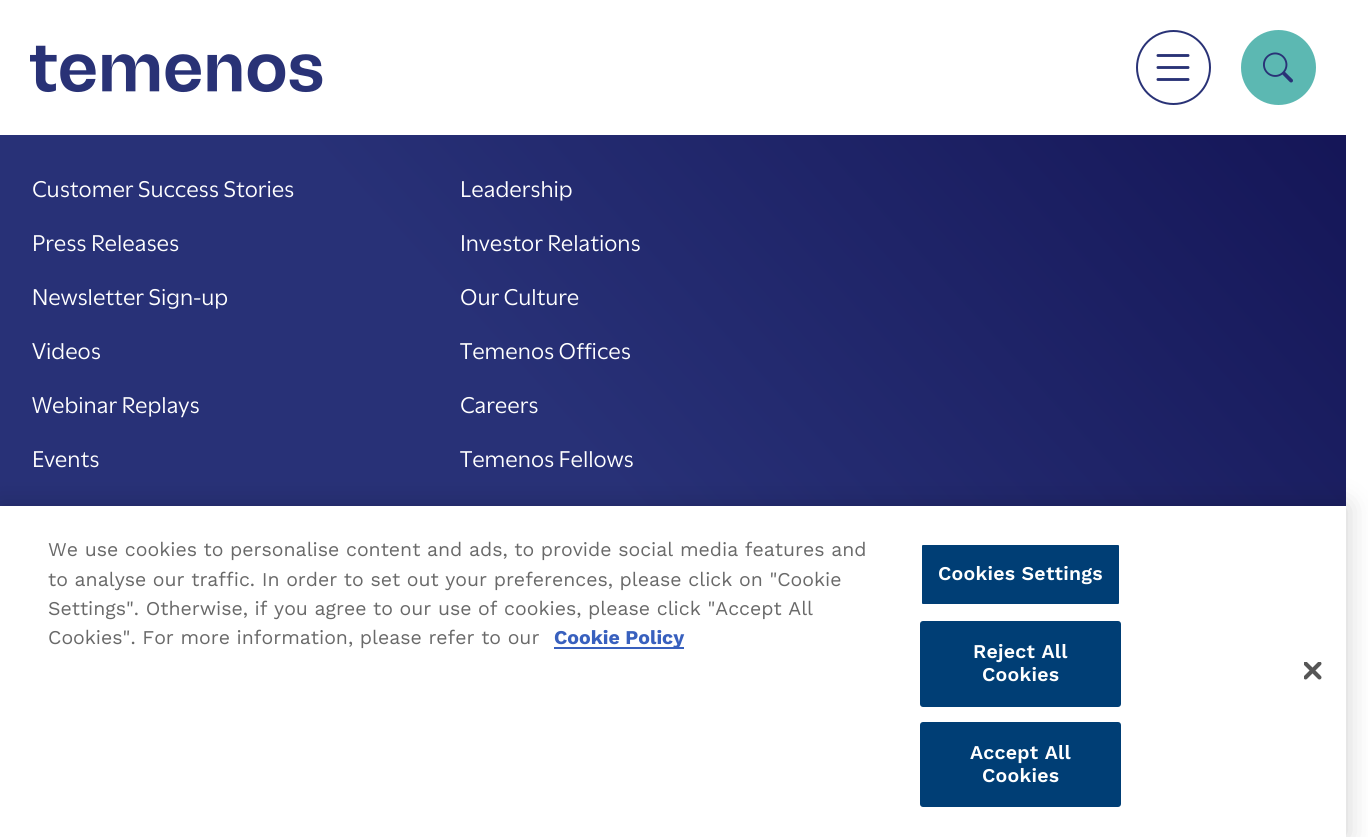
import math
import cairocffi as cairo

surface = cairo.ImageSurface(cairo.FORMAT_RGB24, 1368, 837)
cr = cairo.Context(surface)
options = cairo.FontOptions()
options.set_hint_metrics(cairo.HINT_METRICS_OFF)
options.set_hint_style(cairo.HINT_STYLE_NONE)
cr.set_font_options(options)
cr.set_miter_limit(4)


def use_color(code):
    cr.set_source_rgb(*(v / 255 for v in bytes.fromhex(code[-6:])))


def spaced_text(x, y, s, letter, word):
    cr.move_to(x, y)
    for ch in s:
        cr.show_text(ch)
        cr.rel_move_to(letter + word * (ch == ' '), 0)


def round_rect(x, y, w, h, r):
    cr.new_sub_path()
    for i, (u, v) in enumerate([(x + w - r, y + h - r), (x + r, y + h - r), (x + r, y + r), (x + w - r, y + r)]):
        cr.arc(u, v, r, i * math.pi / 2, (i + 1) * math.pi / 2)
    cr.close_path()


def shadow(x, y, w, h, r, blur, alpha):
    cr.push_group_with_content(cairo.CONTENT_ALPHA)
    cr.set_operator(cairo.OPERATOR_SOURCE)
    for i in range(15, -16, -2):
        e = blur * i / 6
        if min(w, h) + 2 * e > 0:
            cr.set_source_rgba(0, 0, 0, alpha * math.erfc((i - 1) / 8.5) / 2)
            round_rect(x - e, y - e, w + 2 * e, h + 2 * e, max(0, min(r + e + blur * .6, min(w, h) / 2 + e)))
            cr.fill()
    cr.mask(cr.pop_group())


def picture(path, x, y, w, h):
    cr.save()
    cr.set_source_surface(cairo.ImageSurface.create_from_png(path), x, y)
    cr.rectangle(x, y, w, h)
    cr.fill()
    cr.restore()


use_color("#ffffff")
cr.paint()
picture("img1.png", 30, 45, 293, 48)
cr.arc(1173.5, 67.5, 36.5, 0, 2 * math.pi)
use_color("#293276")
cr.stroke()
picture("img2.png", 1156, 54, 34, 27)
use_color("#5cb8b2")
cr.arc(1278.5, 67.5, 36.5, 0, 2 * math.pi)
cr.fill_preserve()
cr.stroke()
picture("img3.png", 1263, 52, 30, 31)
gradient = cairo.LinearGradient(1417, -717, -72, 624)
gradient.add_color_stop_rgba(0, 0.02, 0, 0.243, 1)
gradient.add_color_stop_rgba(0.7, 0.157, 0.192, 0.467, 1)
cr.set_source(gradient)
cr.rectangle(0, 135, 1346, 371)
cr.fill()
cr.select_font_face("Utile")
cr.set_font_size(24)
use_color("#ffffff")
cr.move_to(32, 197)
cr.show_text("Customer Success Stories")
cr.move_to(32, 251)
cr.show_text("Press Releases")
cr.move_to(32, 305)
cr.show_text("Newsletter Sign-up")
cr.move_to(32, 359)
cr.show_text("Videos")
cr.move_to(32, 413)
cr.show_text("Webinar Replays")
cr.move_to(32, 467)
cr.show_text("Events")
cr.move_to(460, 197)
cr.show_text("Leadership")
cr.move_to(460, 251)
cr.show_text("Investor Relations")
cr.move_to(460, 305)
cr.show_text("Our Culture")
cr.move_to(460, 359)
cr.show_text("Temenos Offices")
cr.move_to(460, 413)
cr.show_text("Careers")
cr.move_to(460, 467)
cr.show_text("Temenos Fellows")
use_color("#000000")
shadow(0, 506, 1346, 331, 0, 13.5, 0.2)
use_color("#ffffff")
cr.rectangle(0, 506, 1346, 331)
cr.fill()
cr.select_font_face("Work Sans")
cr.set_font_size(19.5)
use_color("#696969")
cr.move_to(48, 556)
cr.show_text("We use cookies to personalise content and ads, to provide social media features and")
cr.move_to(48, 586)
cr.show_text("to analyse our traffic. In order to set out your preferences, please click on \"Cookie")
cr.move_to(48, 615)
cr.show_text("Settings\". Otherwise, if you agree to our use of cookies, please click \"Accept All")
cr.move_to(48, 644)
cr.show_text("Cookies\". For more information, please refer to our")
use_color("#3860be")
cr.rectangle(554, 647, 130, 2)
cr.fill()
cr.select_font_face("Work Sans", cairo.FONT_SLANT_NORMAL, cairo.FONT_WEIGHT_BOLD)
cr.move_to(554, 644)
cr.show_text("Cookie Policy")
use_color("#003e75")
round_rect(921, 544, 199, 61, 2)
cr.fill_preserve()
use_color("#ffffff")
cr.stroke()
cr.select_font_face("Work Sans SemiBold")
spaced_text(938, 580, "Cookies Settings", 0.25, 0)
use_color("#003e75")
round_rect(921, 622, 199, 84, 2)
cr.fill_preserve()
cr.stroke()
use_color("#ffffff")
spaced_text(973, 658, "Reject All", 0.25, 0)
spaced_text(982, 681, "Cookies", 0.25, 0)
use_color("#003e75")
round_rect(921, 723, 199, 83, 2)
cr.fill_preserve()
cr.stroke()
use_color("#ffffff")
spaced_text(970, 759, "Accept All", 0.25, 0)
spaced_text(982, 782, "Cookies", 0.25, 0)
picture("img4.png", 1304, 662, 18, 18)
surface.write_to_png("result.png")
